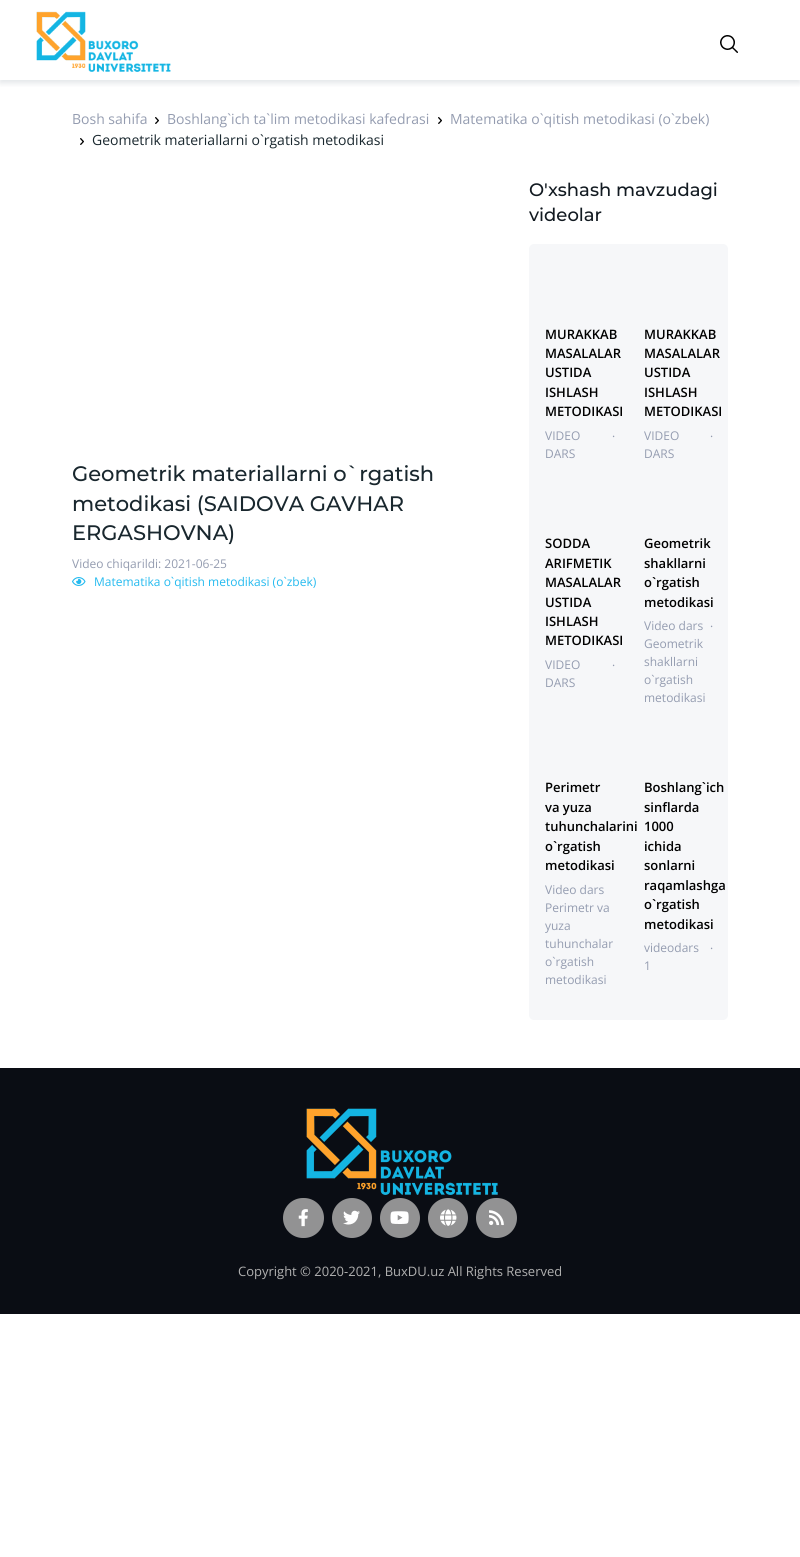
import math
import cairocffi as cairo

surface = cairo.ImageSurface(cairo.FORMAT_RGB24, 800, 1557)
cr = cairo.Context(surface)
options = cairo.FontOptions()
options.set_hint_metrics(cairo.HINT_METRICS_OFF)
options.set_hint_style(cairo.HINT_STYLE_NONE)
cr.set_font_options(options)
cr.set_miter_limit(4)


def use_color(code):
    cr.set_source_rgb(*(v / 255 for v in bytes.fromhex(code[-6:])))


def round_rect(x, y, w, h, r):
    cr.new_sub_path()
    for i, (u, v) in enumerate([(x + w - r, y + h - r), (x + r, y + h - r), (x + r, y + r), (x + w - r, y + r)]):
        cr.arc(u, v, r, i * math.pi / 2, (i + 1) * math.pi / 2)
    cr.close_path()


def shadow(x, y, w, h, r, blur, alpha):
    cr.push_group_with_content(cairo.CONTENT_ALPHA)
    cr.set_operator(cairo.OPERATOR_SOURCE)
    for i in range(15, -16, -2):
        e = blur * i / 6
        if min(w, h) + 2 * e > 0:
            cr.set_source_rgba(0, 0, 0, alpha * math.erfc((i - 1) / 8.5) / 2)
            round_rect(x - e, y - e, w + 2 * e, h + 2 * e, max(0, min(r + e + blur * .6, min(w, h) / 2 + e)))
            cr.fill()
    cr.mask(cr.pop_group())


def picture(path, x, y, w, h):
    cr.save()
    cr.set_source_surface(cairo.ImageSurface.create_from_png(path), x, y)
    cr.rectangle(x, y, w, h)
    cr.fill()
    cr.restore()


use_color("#ffffff")
cr.paint()
cr.save()
cr.rectangle(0, 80, 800, 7)
cr.clip()
use_color("#8c98a4")
shadow(0, 3, 800, 80, 0, 3, 0.25)
cr.restore()
picture("img1.png", 36, 11, 135, 61)
picture("img2.png", 720, 35, 18, 18)
cr.select_font_face("Open Sans")
cr.set_font_size(14)
use_color("#949cb0")
cr.move_to(72, 124)
cr.show_text("Bosh sahifa")
picture("img3.png", 155, 117, 4, 7)
cr.move_to(167, 124)
cr.show_text("Boshlang`ich ta`lim metodikasi kafedrasi")
picture("img3.png", 438, 117, 4, 7)
cr.move_to(450, 124)
cr.show_text("Matematika o`qitish metodikasi (o`zbek)")
picture("img3.png", 80, 138, 4, 7)
use_color("#19272e")
cr.move_to(92, 145)
cr.show_text("Geometrik materiallarni o`rgatish metodikasi")
cr.select_font_face("Montserrat Medium")
cr.set_font_size(21)
cr.move_to(72, 481)
cr.show_text("Geometrik materiallarni o`rgatish")
cr.move_to(72, 511)
cr.show_text("metodikasi (SAIDOVA GAVHAR")
cr.move_to(72, 540)
cr.show_text("ERGASHOVNA)")
cr.select_font_face("Open Sans")
cr.set_font_size(12)
use_color("#949cb0")
cr.move_to(72, 568)
cr.show_text("Video chiqarildi: 2021-06-25")
picture("img4.png", 72, 577, 14, 9)
use_color("#24baef")
cr.move_to(94, 586)
cr.show_text("Matematika o`qitish metodikasi (o`zbek)")
cr.select_font_face("Montserrat Medium")
cr.set_font_size(18)
use_color("#121a21")
cr.move_to(529, 196)
cr.show_text("O'xshash mavzudagi")
cr.move_to(529, 221)
cr.show_text("videolar")
use_color("#f6f7f9")
round_rect(529, 244, 199, 776, 5)
cr.fill()
cr.select_font_face("Open Sans SemiBold")
cr.set_font_size(13)
use_color("#000000")
cr.move_to(545, 339)
cr.show_text("MURAKKAB")
cr.move_to(545, 358)
cr.show_text("MASALALAR")
cr.move_to(545, 377)
cr.show_text("USTIDA")
cr.move_to(545, 397)
cr.show_text("ISHLASH")
cr.move_to(545, 416)
cr.show_text("METODIKASI")
cr.select_font_face("Open Sans")
cr.set_font_size(12)
use_color("#949cb0")
cr.move_to(545, 440)
cr.show_text("VIDEO")
cr.move_to(612, 437)
cr.show_text(".")
cr.move_to(545, 458)
cr.show_text("DARS")
cr.select_font_face("Open Sans SemiBold")
cr.set_font_size(13)
use_color("#000000")
cr.move_to(644, 339)
cr.show_text("MURAKKAB")
cr.move_to(644, 358)
cr.show_text("MASALALAR")
cr.move_to(644, 377)
cr.show_text("USTIDA")
cr.move_to(644, 397)
cr.show_text("ISHLASH")
cr.move_to(644, 416)
cr.show_text("METODIKASI")
cr.select_font_face("Open Sans")
cr.set_font_size(12)
use_color("#949cb0")
cr.move_to(644, 440)
cr.show_text("VIDEO")
cr.move_to(710, 437)
cr.show_text(".")
cr.move_to(644, 458)
cr.show_text("DARS")
cr.select_font_face("Open Sans SemiBold")
cr.set_font_size(13)
use_color("#000000")
cr.move_to(545, 548)
cr.show_text("SODDA")
cr.move_to(545, 568)
cr.show_text("ARIFMETIK")
cr.move_to(545, 587)
cr.show_text("MASALALAR")
cr.move_to(545, 607)
cr.show_text("USTIDA")
cr.move_to(545, 626)
cr.show_text("ISHLASH")
cr.move_to(545, 645)
cr.show_text("METODIKASI")
cr.select_font_face("Open Sans")
cr.set_font_size(12)
use_color("#949cb0")
cr.move_to(545, 669)
cr.show_text("VIDEO")
cr.move_to(612, 666)
cr.show_text(".")
cr.move_to(545, 687)
cr.show_text("DARS")
cr.select_font_face("Open Sans SemiBold")
cr.set_font_size(13)
use_color("#000000")
cr.move_to(644, 548)
cr.show_text("Geometrik")
cr.move_to(644, 568)
cr.show_text("shakllarni")
cr.move_to(644, 587)
cr.show_text("o`rgatish")
cr.move_to(644, 607)
cr.show_text("metodikasi")
cr.select_font_face("Open Sans")
cr.set_font_size(12)
use_color("#949cb0")
cr.move_to(644, 630)
cr.show_text("Video dars")
cr.move_to(710, 627)
cr.show_text(".")
cr.move_to(644, 648)
cr.show_text("Geometrik")
cr.move_to(644, 666)
cr.show_text("shakllarni")
cr.move_to(644, 684)
cr.show_text("o`rgatish")
cr.move_to(644, 702)
cr.show_text("metodikasi")
cr.select_font_face("Open Sans SemiBold")
cr.set_font_size(13)
use_color("#000000")
cr.move_to(545, 792)
cr.show_text("Perimetr")
cr.move_to(545, 812)
cr.show_text("va yuza")
cr.move_to(545, 831)
cr.show_text("tuhunchalarini")
cr.move_to(545, 851)
cr.show_text("o`rgatish")
cr.move_to(545, 870)
cr.show_text("metodikasi")
cr.select_font_face("Open Sans")
cr.set_font_size(12)
use_color("#949cb0")
cr.move_to(545, 894)
cr.show_text("Video dars")
cr.move_to(545, 912)
cr.show_text("Perimetr va")
cr.move_to(545, 930)
cr.show_text("yuza")
cr.move_to(545, 948)
cr.show_text("tuhunchalar")
cr.move_to(545, 966)
cr.show_text("o`rgatish")
cr.move_to(545, 984)
cr.show_text("metodikasi")
cr.select_font_face("Open Sans SemiBold")
cr.set_font_size(13)
use_color("#000000")
cr.move_to(644, 792)
cr.show_text("Boshlang`ich")
cr.move_to(644, 812)
cr.show_text("sinflarda")
cr.move_to(644, 831)
cr.show_text("1000")
cr.move_to(644, 851)
cr.show_text("ichida")
cr.move_to(644, 870)
cr.show_text("sonlarni")
cr.move_to(644, 890)
cr.show_text("raqamlashga")
cr.move_to(644, 909)
cr.show_text("o`rgatish")
cr.move_to(644, 929)
cr.show_text("metodikasi")
cr.select_font_face("Open Sans")
cr.set_font_size(12)
use_color("#949cb0")
cr.move_to(644, 952)
cr.show_text("videodars")
cr.move_to(710, 949)
cr.show_text(".")
cr.move_to(644, 970)
cr.show_text("1")
use_color("#0a0d14")
cr.rectangle(0, 1068, 800, 246)
cr.fill()
picture("img5.png", 306, 1108, 192, 87)
use_color("#929293")
round_rect(283, 1198, 41, 40, 20)
cr.fill()
picture("img6.png", 298, 1209, 10, 18)
cr.arc(352, 1218, 20, 0, 2 * math.pi)
cr.fill()
picture("img7.png", 343, 1210, 17, 15)
cr.arc(400, 1218, 20, 0, 2 * math.pi)
cr.fill()
picture("img8.png", 390, 1211, 19, 13)
cr.arc(448, 1218, 20, 0, 2 * math.pi)
cr.fill()
picture("img9.png", 440, 1209, 17, 17)
round_rect(476, 1198, 41, 40, 20)
cr.fill()
picture("img10.png", 489, 1210, 15, 16)
cr.set_font_size(13)
use_color("#b0b0b0")
cr.move_to(238, 1276)
cr.show_text("Copyright © 2020-2021, BuxDU.uz All Rights Reserved")
surface.write_to_png("result.png")
